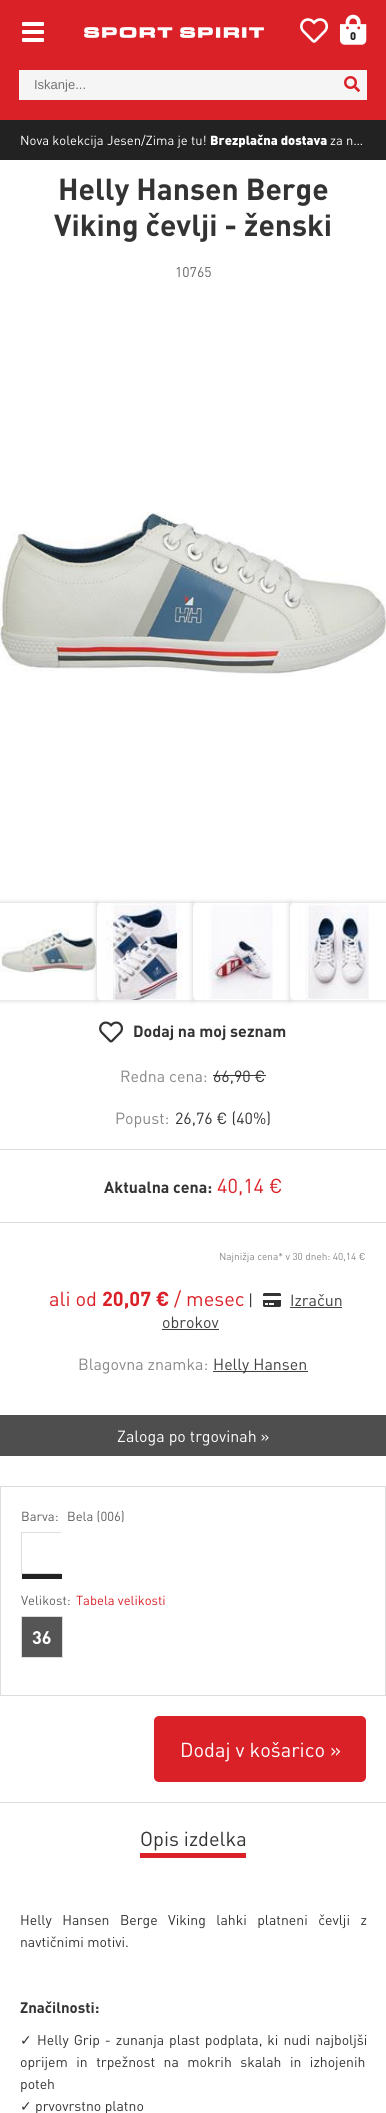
import math
import cairocffi as cairo

surface = cairo.ImageSurface(cairo.FORMAT_RGB24, 386, 2113)
cr = cairo.Context(surface)
options = cairo.FontOptions()
options.set_hint_metrics(cairo.HINT_METRICS_OFF)
options.set_hint_style(cairo.HINT_STYLE_NONE)
cr.set_font_options(options)
cr.set_miter_limit(4)


def use_color(code):
    cr.set_source_rgb(*(v / 255 for v in bytes.fromhex(code[-6:])))


def spaced_text(x, y, s, letter, word):
    cr.move_to(x, y)
    for ch in s:
        cr.show_text(ch)
        cr.rel_move_to(letter + word * (ch == ' '), 0)


def round_rect(x, y, w, h, r):
    cr.new_sub_path()
    for i, (u, v) in enumerate([(x + w - r, y + h - r), (x + r, y + h - r), (x + r, y + r), (x + w - r, y + r)]):
        cr.arc(u, v, r, i * math.pi / 2, (i + 1) * math.pi / 2)
    cr.close_path()


def shadow(x, y, w, h, r, blur, alpha):
    cr.push_group_with_content(cairo.CONTENT_ALPHA)
    cr.set_operator(cairo.OPERATOR_SOURCE)
    for i in range(15, -16, -2):
        e = blur * i / 6
        if min(w, h) + 2 * e > 0:
            cr.set_source_rgba(0, 0, 0, alpha * math.erfc((i - 1) / 8.5) / 2)
            round_rect(x - e, y - e, w + 2 * e, h + 2 * e, max(0, min(r + e + blur * .6, min(w, h) / 2 + e)))
            cr.fill()
    cr.mask(cr.pop_group())


def picture(path, x, y, w, h):
    cr.save()
    cr.set_source_surface(cairo.ImageSurface.create_from_png(path), x, y)
    cr.rectangle(x, y, w, h)
    cr.fill()
    cr.restore()


use_color("#ffffff")
cr.paint()
use_color("#da2128")
cr.rectangle(0, 0, 386, 120)
cr.fill()
use_color("#ffffff")
round_rect(22, 22, 22, 4, 1)
cr.fill()
round_rect(22, 30, 22, 4, 1)
cr.fill()
round_rect(22, 38, 22, 4, 1)
cr.fill()
picture("img1.png", 84, 27, 180, 11)
picture("img2.png", 300, 18, 29, 25)
picture("img3.png", 340, 14, 27, 31)
cr.select_font_face("DIN Black")
cr.set_font_size(11)
use_color("#222222")
cr.move_to(350, 40)
cr.show_text("0")
use_color("#f5f5f5")
cr.rectangle(19, 70, 348, 30)
cr.fill()
cr.select_font_face("Liberation Sans")
cr.set_font_size(13)
use_color("#757575")
cr.move_to(34, 89)
cr.show_text("Iskanje...")
picture("img4.png", 344, 76, 16, 16)
use_color("#222222")
cr.rectangle(0, 120, 386, 40)
cr.fill()
cr.select_font_face("DIN")
use_color("#ffffff")
cr.move_to(20, 145)
cr.show_text("Nova kolekcija Jesen/Zima je tu!")
cr.select_font_face("DIN Black")
cr.move_to(210, 145)
cr.show_text("Brezplačna dostava")
cr.select_font_face("DIN")
cr.move_to(330, 145)
cr.show_text("za n…")
cr.select_font_face("DIN", cairo.FONT_SLANT_NORMAL, cairo.FONT_WEIGHT_BOLD)
cr.set_font_size(30)
use_color("#333333")
cr.move_to(58, 200)
cr.show_text("Helly Hansen Berge")
cr.move_to(54, 236)
cr.show_text("Viking čevlji - ženski")
cr.select_font_face("DIN")
cr.set_font_size(14)
use_color("#666666")
cr.move_to(175, 277)
cr.show_text("10765")
picture("img5.png", 0, 512, 386, 165)
cr.save()
cr.set_fill_rule(cairo.FILL_RULE_EVEN_ODD)
cr.new_path()
cr.move_to(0, 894)
cr.line_to(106, 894)
cr.line_to(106, 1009)
cr.line_to(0, 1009)
cr.close_path()
cr.move_to(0, 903)
cr.line_to(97, 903)
cr.line_to(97, 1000)
cr.line_to(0, 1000)
cr.close_path()
cr.clip()
use_color("#cccccc")
shadow(0, 903, 97, 97, 0, 2.5, 1)
cr.restore()
picture("img6.png", 0, 927, 97, 46)
cr.save()
cr.set_fill_rule(cairo.FILL_RULE_EVEN_ODD)
cr.new_path()
cr.move_to(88, 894)
cr.line_to(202, 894)
cr.line_to(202, 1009)
cr.line_to(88, 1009)
cr.close_path()
cr.move_to(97, 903)
cr.line_to(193, 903)
cr.line_to(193, 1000)
cr.line_to(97, 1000)
cr.close_path()
cr.clip()
use_color("#cccccc")
shadow(97, 903, 96, 97, 0, 2.5, 1)
cr.restore()
picture("img7.png", 97, 903, 86, 97)
cr.save()
cr.set_fill_rule(cairo.FILL_RULE_EVEN_ODD)
cr.new_path()
cr.move_to(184, 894)
cr.line_to(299, 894)
cr.line_to(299, 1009)
cr.line_to(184, 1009)
cr.close_path()
cr.move_to(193, 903)
cr.line_to(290, 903)
cr.line_to(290, 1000)
cr.line_to(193, 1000)
cr.close_path()
cr.clip()
use_color("#cccccc")
shadow(193, 903, 97, 97, 0, 2.5, 1)
cr.restore()
picture("img8.png", 193, 903, 80, 96)
cr.save()
cr.set_fill_rule(cairo.FILL_RULE_EVEN_ODD)
cr.new_path()
cr.move_to(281, 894)
cr.line_to(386, 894)
cr.line_to(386, 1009)
cr.line_to(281, 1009)
cr.close_path()
cr.move_to(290, 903)
cr.line_to(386, 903)
cr.line_to(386, 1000)
cr.line_to(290, 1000)
cr.close_path()
cr.clip()
use_color("#cccccc")
shadow(290, 903, 96, 97, 0, 2.5, 1)
cr.restore()
picture("img9.png", 290, 903, 79, 97)
picture("img10.png", 99, 1021, 25, 22)
cr.select_font_face("DIN", cairo.FONT_SLANT_NORMAL, cairo.FONT_WEIGHT_BOLD)
cr.set_font_size(16)
use_color("#333333")
cr.move_to(133, 1037)
cr.show_text("Dodaj na moj seznam")
cr.select_font_face("DIN")
use_color("#888888")
cr.move_to(120, 1082)
cr.show_text("Redna cena:")
use_color("#333333")
cr.move_to(213, 1082)
cr.show_text("66,90 €")
cr.rectangle(213, 1075, 53, 1)
cr.fill()
use_color("#888888")
cr.move_to(115, 1124)
cr.show_text("Popust:")
use_color("#333333")
cr.move_to(175, 1124)
cr.show_text("26,76 € (40%)")
use_color("#dddddd")
cr.rectangle(0, 1149, 386, 1)
cr.fill()
cr.rectangle(0, 1222, 386, 1)
cr.fill()
cr.select_font_face("DIN", cairo.FONT_SLANT_NORMAL, cairo.FONT_WEIGHT_BOLD)
use_color("#333333")
cr.move_to(104, 1193)
cr.show_text("Aktualna cena:")
cr.select_font_face("DIN")
cr.set_font_size(20)
use_color("#da2128")
cr.move_to(217, 1193)
cr.show_text("40,14 €")
cr.set_font_size(10)
use_color("#888888")
cr.move_to(219, 1260)
cr.show_text("Najnižja cena* v 30 dneh: 40,14 €")
cr.set_font_size(20)
use_color("#da2128")
cr.move_to(49, 1306)
cr.show_text("ali od")
cr.select_font_face("DIN", cairo.FONT_SLANT_NORMAL, cairo.FONT_WEIGHT_BOLD)
cr.move_to(102, 1306)
cr.show_text("20,07 €")
cr.select_font_face("DIN")
cr.move_to(174, 1306)
cr.show_text("/ mesec")
cr.set_font_size(16)
use_color("#333333")
cr.move_to(248, 1306)
cr.show_text("|")
picture("img11.png", 263, 1293, 18, 14)
use_color("#404040")
cr.move_to(290, 1306)
cr.show_text("Izračun")
cr.rectangle(290, 1307, 52, 1)
cr.fill()
cr.move_to(162, 1328)
cr.show_text("obrokov")
cr.rectangle(162, 1329, 57, 1)
cr.fill()
use_color("#888888")
cr.move_to(78, 1370)
cr.show_text("Blagovna znamka:")
use_color("#404040")
cr.rectangle(213, 1371, 95, 1)
cr.fill()
cr.move_to(213, 1370)
cr.show_text("Helly Hansen")
use_color("#4e4e4e")
cr.rectangle(0, 1415, 386, 41)
cr.fill()
use_color("#ffffff")
cr.move_to(117, 1442)
cr.show_text("Zaloga po trgovinah »")
cr.rectangle(0.5, 1486.5, 385, 209)
use_color("#dddddd")
cr.set_line_width(1)
cr.stroke()
cr.set_font_size(13)
use_color("#606060")
cr.move_to(21, 1521)
cr.show_text("Barva:")
cr.move_to(67, 1521)
cr.show_text("Bela (006)")
cr.rectangle(21.5, 1532.5, 39, 41)
use_color("#dddddd")
cr.stroke()
use_color("#ffffff")
cr.rectangle(60, 1533, 1, 40)
cr.fill()
use_color("#222222")
cr.rectangle(22, 1574, 40, 5)
cr.fill()
use_color("#606060")
cr.move_to(21, 1605)
cr.show_text("Velikost:")
use_color("#da2128")
cr.move_to(76, 1605)
cr.show_text("Tabela velikosti")
cr.rectangle(21.5, 1616.5, 41, 41)
use_color("#dddddd")
cr.stroke()
use_color("#555555")
cr.rectangle(22, 1617, 40, 40)
cr.fill()
cr.select_font_face("DIN", cairo.FONT_SLANT_NORMAL, cairo.FONT_WEIGHT_BOLD)
cr.set_font_size(18)
use_color("#ffffff")
cr.move_to(32, 1644)
cr.show_text("36")
use_color("#da2128")
round_rect(154, 1716, 212, 66, 5)
cr.fill()
cr.select_font_face("DIN")
cr.set_font_size(20)
use_color("#ffffff")
cr.move_to(180, 1757)
cr.show_text("Dodaj v košarico »")
use_color("#dddddd")
cr.rectangle(0, 1802, 386, 1)
cr.fill()
use_color("#da2128")
cr.rectangle(140, 1853, 106, 5)
cr.fill()
use_color("#333333")
cr.move_to(140, 1846)
cr.show_text("Opis izdelka")
cr.set_font_size(14)
spaced_text(20, 1925, "Helly Hansen Berge Viking lahki platneni čevlji z", 0, 7)
cr.move_to(20, 1947)
cr.show_text("navtičnimi motivi.")
cr.select_font_face("DIN", cairo.FONT_SLANT_NORMAL, cairo.FONT_WEIGHT_BOLD)
cr.set_font_size(15)
cr.move_to(20, 2013)
cr.show_text("Značilnosti:")
cr.select_font_face("DejaVu Sans")
cr.set_font_size(14)
cr.move_to(20, 2045)
cr.show_text("✓")
cr.select_font_face("DIN")
spaced_text(37, 2045, "Helly Grip - zunanja plast podplata, ki nudi najboljši", 0, 1.5)
spaced_text(20, 2067, "oprijem in trpežnost na mokrih skalah in izhojenih", 0, 5)
cr.move_to(20, 2089)
cr.show_text("poteh")
cr.select_font_face("DejaVu Sans")
cr.move_to(20, 2111)
cr.show_text("✓")
cr.select_font_face("DIN")
cr.move_to(35, 2111)
cr.show_text("prvovrstno platno")
surface.write_to_png("result.png")
